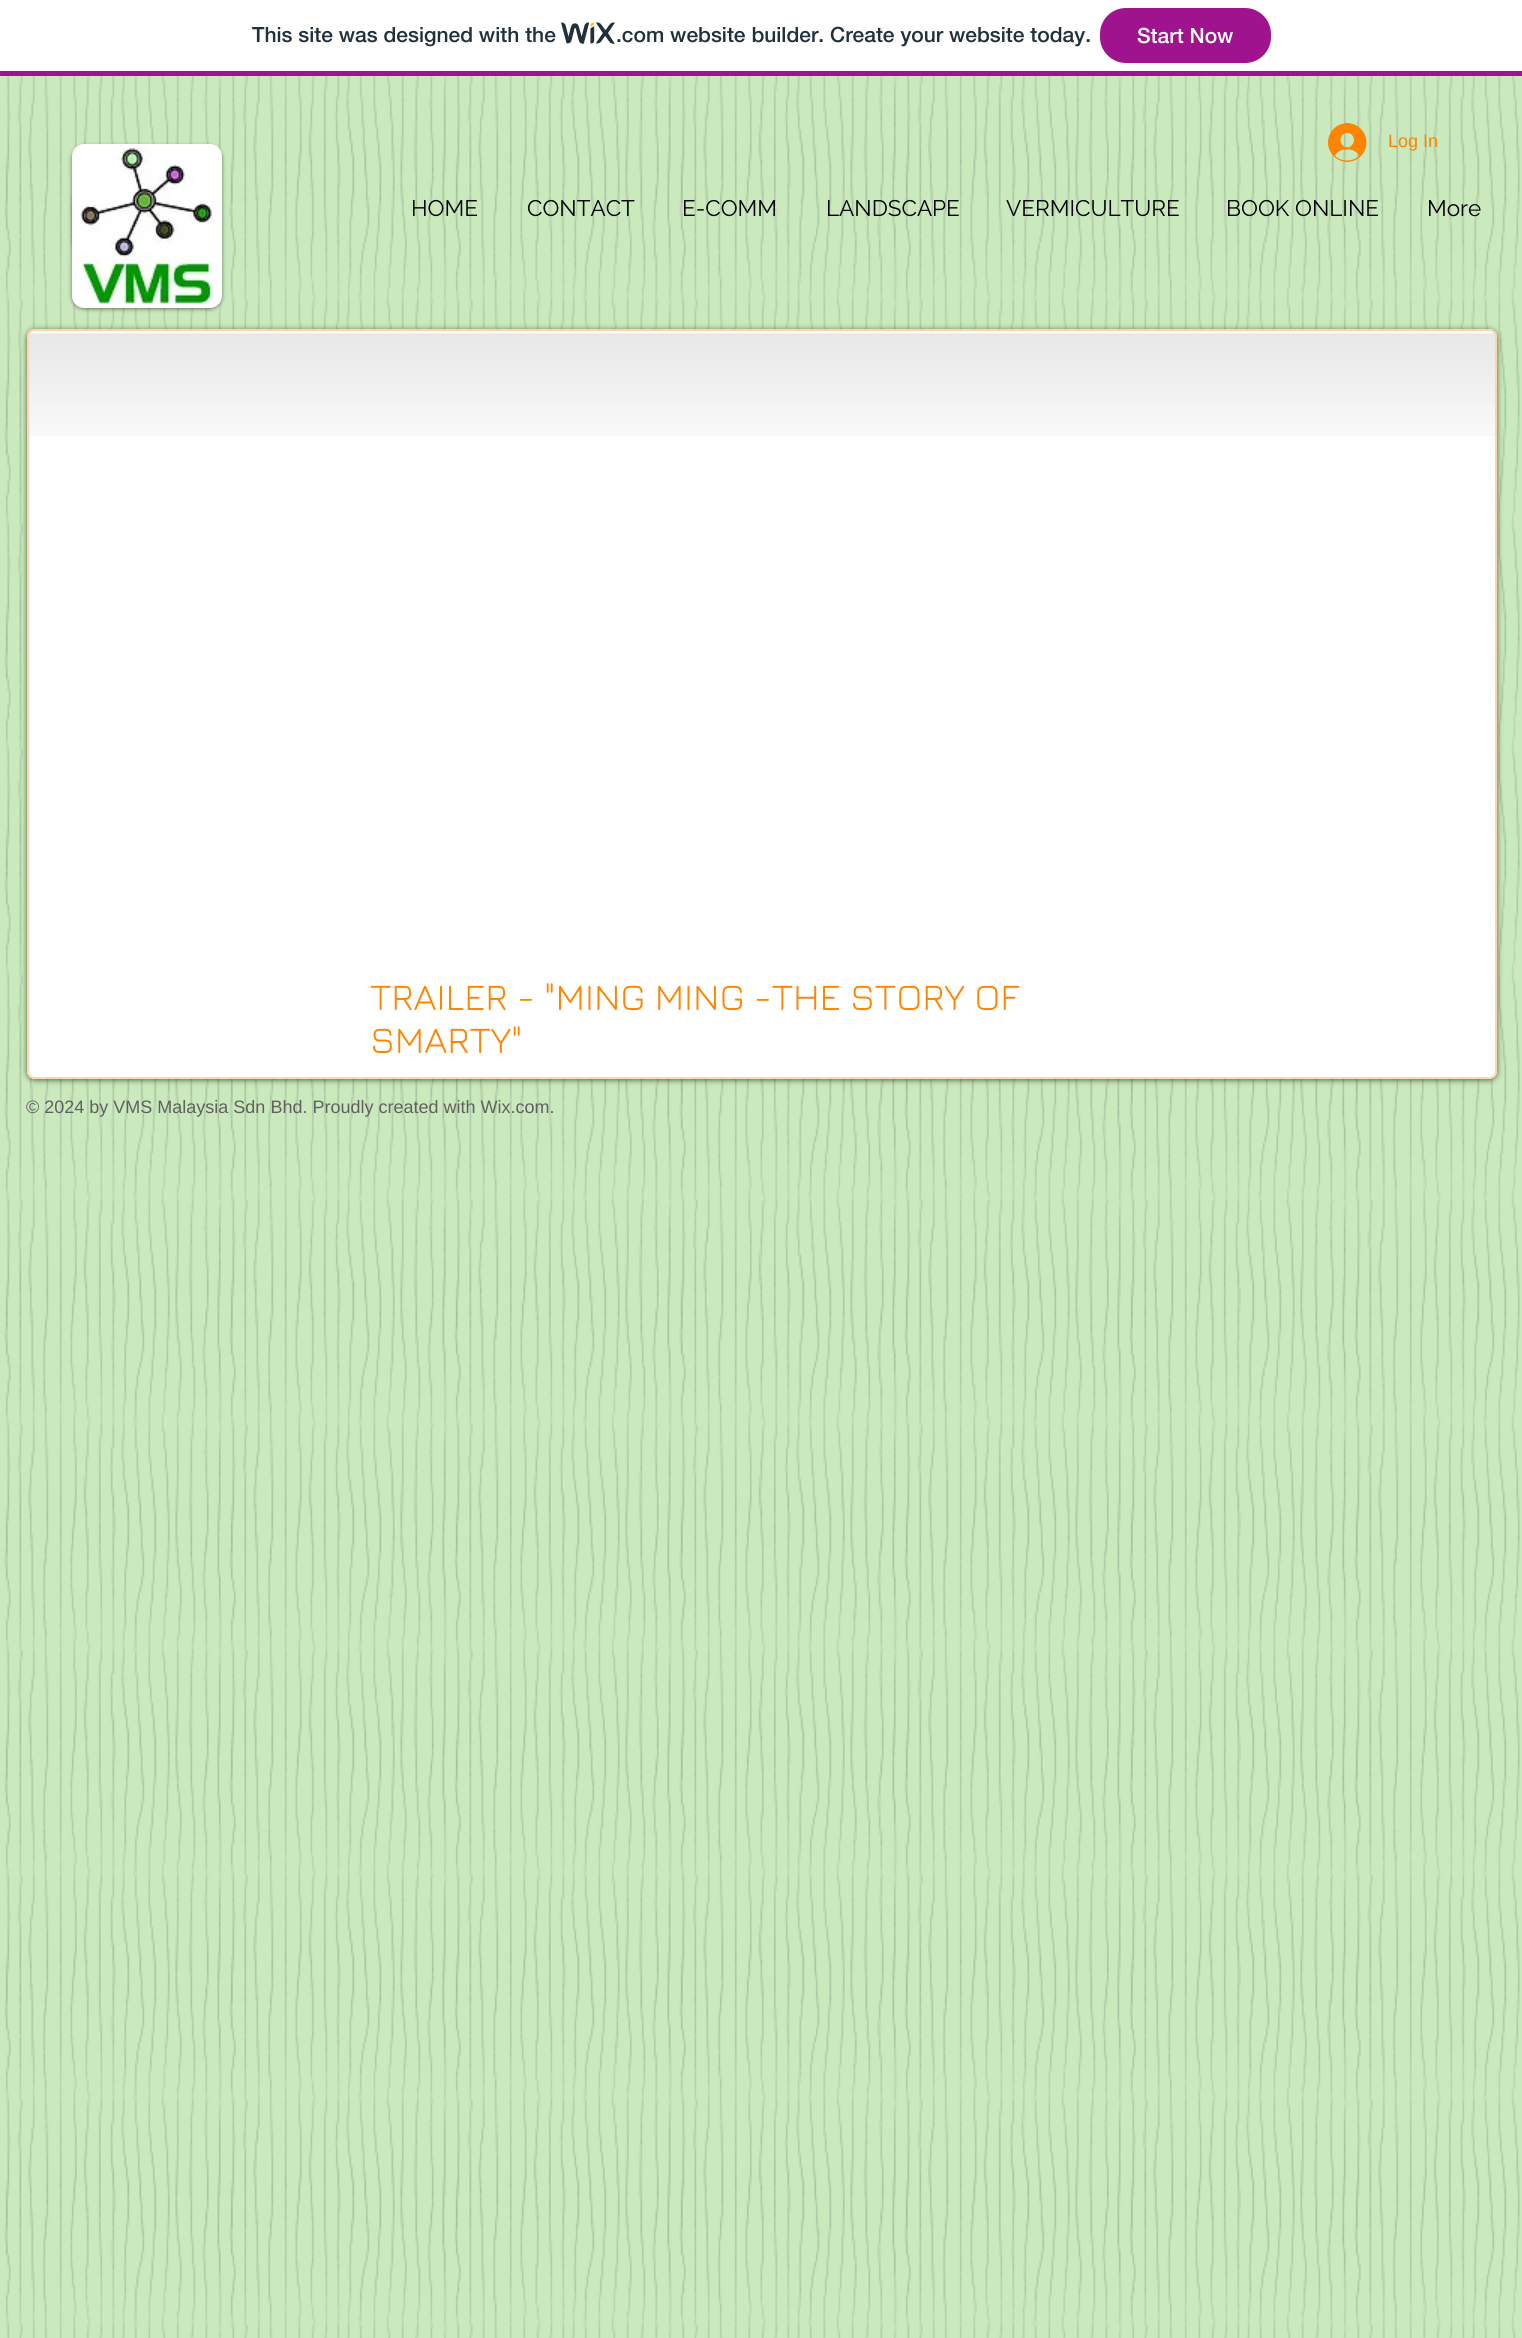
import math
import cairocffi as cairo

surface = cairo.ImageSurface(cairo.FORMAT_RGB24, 1522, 2338)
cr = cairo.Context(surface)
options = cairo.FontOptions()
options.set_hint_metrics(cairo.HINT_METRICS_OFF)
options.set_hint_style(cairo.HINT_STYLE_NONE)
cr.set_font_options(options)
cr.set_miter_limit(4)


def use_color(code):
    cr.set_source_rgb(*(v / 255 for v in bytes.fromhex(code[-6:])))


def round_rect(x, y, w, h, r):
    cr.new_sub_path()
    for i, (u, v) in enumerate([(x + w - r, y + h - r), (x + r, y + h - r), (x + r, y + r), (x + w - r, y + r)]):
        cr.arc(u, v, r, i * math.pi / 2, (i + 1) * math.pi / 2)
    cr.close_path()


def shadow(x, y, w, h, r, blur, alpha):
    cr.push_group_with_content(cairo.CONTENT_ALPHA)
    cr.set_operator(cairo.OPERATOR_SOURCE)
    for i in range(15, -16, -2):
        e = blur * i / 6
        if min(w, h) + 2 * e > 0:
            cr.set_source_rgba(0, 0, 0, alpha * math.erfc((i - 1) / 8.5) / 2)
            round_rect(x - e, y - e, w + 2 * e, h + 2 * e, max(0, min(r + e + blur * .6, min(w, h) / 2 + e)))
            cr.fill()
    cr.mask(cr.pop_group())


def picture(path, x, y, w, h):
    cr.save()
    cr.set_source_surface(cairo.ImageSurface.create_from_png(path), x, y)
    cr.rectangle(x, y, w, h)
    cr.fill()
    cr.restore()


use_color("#ffffff")
cr.paint()
use_color("#a0138e")
cr.rectangle(0, 71, 1522, 5)
cr.fill()
cr.select_font_face("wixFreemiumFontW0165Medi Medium")
cr.set_font_size(21)
use_color("#20303c")
cr.move_to(252, 42)
cr.show_text("This site was designed with the")
picture("img1.png", 561, 22, 54, 22)
cr.move_to(616, 42)
cr.show_text(".com website builder. Create your website today.")
use_color("#a0138e")
round_rect(1101, 9, 169, 53, 25)
cr.fill_preserve()
cr.stroke()
use_color("#ffffff")
cr.move_to(1137, 43)
cr.show_text("Start Now")
use_color("#cae9bd")
cr.rectangle(0, 76, 1522, 2262)
cr.fill()
picture("img2.png", 4, 76, 1516, 2262)
use_color("#000000")
shadow(72, 146, 150, 163, 12, 2, 0.5)
use_color("#ffffff")
round_rect(73.5, 145.5, 147, 161, 10.5)
cr.fill_preserve()
cr.set_line_width(3)
cr.stroke()
picture("img3.png", 75, 147, 144, 157)
picture("img4.png", 1328, 123, 39, 39)
cr.select_font_face("Liberation Sans")
cr.set_font_size(18)
use_color("#ff8400")
cr.move_to(1388, 147)
cr.show_text("Log In")
cr.select_font_face("Raleway")
cr.set_font_size(22.5)
use_color("#000000")
cr.move_to(411, 216)
cr.show_text("HOME")
cr.move_to(527, 216)
cr.show_text("CONTACT")
cr.move_to(682, 216)
cr.show_text("E-COMM")
cr.move_to(826, 216)
cr.show_text("LANDSCAPE")
cr.move_to(1006, 216)
cr.show_text("VERMICULTURE")
cr.move_to(1226, 216)
cr.show_text("BOOK ONLINE")
cr.move_to(1427, 216)
cr.show_text("More")
use_color("#000000")
shadow(27, 330, 1470, 750, 8, 3, 0.6)
use_color("#ffffff")
round_rect(27, 329, 1470, 750, 8)
cr.fill()
picture("img5.png", 27, 333, 1470, 103)
round_rect(28, 330, 1468, 748, 7)
use_color("#ffd6aa")
cr.set_line_width(2)
cr.stroke()
cr.select_font_face("Jura")
cr.set_font_size(37.5)
use_color("#ff8400")
cr.move_to(370, 1010)
cr.show_text("TRAILER - \"MING MING -THE STORY OF")
cr.move_to(370, 1053)
cr.show_text("SMARTY\"")
cr.select_font_face("Liberation Sans")
cr.set_font_size(18)
use_color("#616060")
cr.move_to(26, 1113)
cr.show_text("© 2024 by VMS Malaysia Sdn Bhd. Proudly created with Wix.com.")
surface.write_to_png("result.png")
